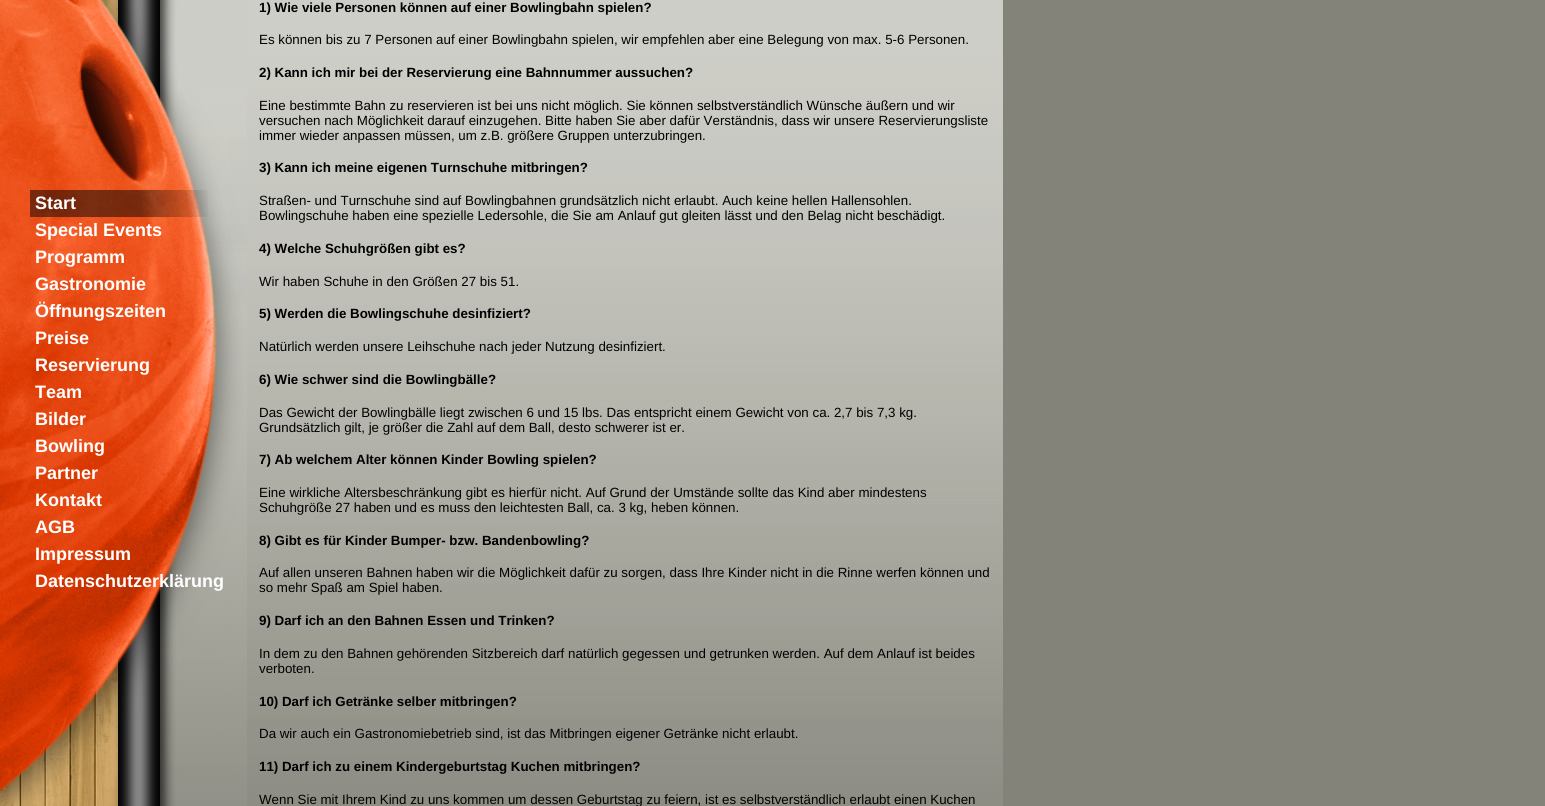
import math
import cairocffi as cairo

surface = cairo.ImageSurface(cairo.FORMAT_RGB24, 1545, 806)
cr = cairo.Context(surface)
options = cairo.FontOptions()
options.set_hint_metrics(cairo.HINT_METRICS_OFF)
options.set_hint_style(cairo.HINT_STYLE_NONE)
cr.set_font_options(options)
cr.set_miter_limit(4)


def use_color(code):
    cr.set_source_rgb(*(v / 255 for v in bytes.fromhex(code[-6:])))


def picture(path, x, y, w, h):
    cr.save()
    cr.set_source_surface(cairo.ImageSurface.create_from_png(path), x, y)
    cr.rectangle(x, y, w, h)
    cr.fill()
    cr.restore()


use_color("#83837a")
cr.paint()
use_color("#cdcdc7")
cr.rectangle(178, 0, 69, 90)
cr.fill()
picture("img1.png", 0, 0, 178, 90)
picture("img2.png", 247, 0, 756, 806)
cr.select_font_face("Liberation Sans", cairo.FONT_SLANT_NORMAL, cairo.FONT_WEIGHT_BOLD)
cr.set_font_size(13.33)
use_color("#000000")
cr.move_to(259, 12)
cr.show_text("1) Wie viele Personen können auf einer Bowlingbahn spielen?")
cr.select_font_face("Liberation Sans")
cr.move_to(259, 44)
cr.show_text("Es können bis zu 7 Personen auf einer Bowlingbahn spielen, wir empfehlen aber eine Belegung von max. 5-6 Personen.")
cr.select_font_face("Liberation Sans", cairo.FONT_SLANT_NORMAL, cairo.FONT_WEIGHT_BOLD)
cr.move_to(259, 77)
cr.show_text("2) Kann ich mir bei der Reservierung eine Bahnnummer aussuchen?")
cr.select_font_face("Liberation Sans")
cr.move_to(259, 110)
cr.show_text("Eine bestimmte Bahn zu reservieren ist bei uns nicht möglich. Sie können selbstverständlich Wünsche äußern und wir")
cr.move_to(259, 125)
cr.show_text("versuchen nach Möglichkeit darauf einzugehen. Bitte haben Sie aber dafür Verständnis, dass wir unsere Reservierungsliste")
cr.move_to(259, 140)
cr.show_text("immer wieder anpassen müssen, um z.B. größere Gruppen unterzubringen.")
cr.select_font_face("Liberation Sans", cairo.FONT_SLANT_NORMAL, cairo.FONT_WEIGHT_BOLD)
cr.move_to(259, 172)
cr.show_text("3) Kann ich meine eigenen Turnschuhe mitbringen?")
cr.select_font_face("Liberation Sans")
cr.move_to(259, 205)
cr.show_text("Straßen- und Turnschuhe sind auf Bowlingbahnen grundsätzlich nicht erlaubt. Auch keine hellen Hallensohlen.")
cr.move_to(259, 220)
cr.show_text("Bowlingschuhe haben eine spezielle Ledersohle, die Sie am Anlauf gut gleiten lässt und den Belag nicht beschädigt.")
cr.select_font_face("Liberation Sans", cairo.FONT_SLANT_NORMAL, cairo.FONT_WEIGHT_BOLD)
cr.move_to(259, 253)
cr.show_text("4) Welche Schuhgrößen gibt es?")
cr.select_font_face("Liberation Sans")
cr.move_to(259, 286)
cr.show_text("Wir haben Schuhe in den Größen 27 bis 51.")
cr.select_font_face("Liberation Sans", cairo.FONT_SLANT_NORMAL, cairo.FONT_WEIGHT_BOLD)
cr.move_to(259, 318)
cr.show_text("5) Werden die Bowlingschuhe desinfiziert?")
cr.select_font_face("Liberation Sans")
cr.move_to(259, 351)
cr.show_text("Natürlich werden unsere Leihschuhe nach jeder Nutzung desinfiziert.")
cr.select_font_face("Liberation Sans", cairo.FONT_SLANT_NORMAL, cairo.FONT_WEIGHT_BOLD)
cr.move_to(259, 384)
cr.show_text("6) Wie schwer sind die Bowlingbälle?")
cr.select_font_face("Liberation Sans")
cr.move_to(259, 417)
cr.show_text("Das Gewicht der Bowlingbälle liegt zwischen 6 und 15 lbs. Das entspricht einem Gewicht von ca. 2,7 bis 7,3 kg.")
cr.move_to(259, 432)
cr.show_text("Grundsätzlich gilt, je größer die Zahl auf dem Ball, desto schwerer ist er.")
cr.select_font_face("Liberation Sans", cairo.FONT_SLANT_NORMAL, cairo.FONT_WEIGHT_BOLD)
cr.move_to(259, 464)
cr.show_text("7) Ab welchem Alter können Kinder Bowling spielen?")
cr.select_font_face("Liberation Sans")
cr.move_to(259, 497)
cr.show_text("Eine wirkliche Altersbeschränkung gibt es hierfür nicht. Auf Grund der Umstände sollte das Kind aber mindestens")
cr.move_to(259, 512)
cr.show_text("Schuhgröße 27 haben und es muss den leichtesten Ball, ca. 3 kg, heben können.")
cr.select_font_face("Liberation Sans", cairo.FONT_SLANT_NORMAL, cairo.FONT_WEIGHT_BOLD)
cr.move_to(259, 545)
cr.show_text("8) Gibt es für Kinder Bumper- bzw. Bandenbowling?")
cr.select_font_face("Liberation Sans")
cr.move_to(259, 577)
cr.show_text("Auf allen unseren Bahnen haben wir die Möglichkeit dafür zu sorgen, dass Ihre Kinder nicht in die Rinne werfen können und")
cr.move_to(259, 592)
cr.show_text("so mehr Spaß am Spiel haben.")
cr.select_font_face("Liberation Sans", cairo.FONT_SLANT_NORMAL, cairo.FONT_WEIGHT_BOLD)
cr.move_to(259, 625)
cr.show_text("9) Darf ich an den Bahnen Essen und Trinken?")
cr.select_font_face("Liberation Sans")
cr.move_to(259, 658)
cr.show_text("In dem zu den Bahnen gehörenden Sitzbereich darf natürlich gegessen und getrunken werden. Auf dem Anlauf ist beides")
cr.move_to(259, 673)
cr.show_text("verboten.")
cr.select_font_face("Liberation Sans", cairo.FONT_SLANT_NORMAL, cairo.FONT_WEIGHT_BOLD)
cr.move_to(259, 706)
cr.show_text("10) Darf ich Getränke selber mitbringen?")
cr.select_font_face("Liberation Sans")
cr.move_to(259, 738)
cr.show_text("Da wir auch ein Gastronomiebetrieb sind, ist das Mitbringen eigener Getränke nicht erlaubt.")
cr.select_font_face("Liberation Sans", cairo.FONT_SLANT_NORMAL, cairo.FONT_WEIGHT_BOLD)
cr.move_to(259, 771)
cr.show_text("11) Darf ich zu einem Kindergeburtstag Kuchen mitbringen?")
cr.select_font_face("Liberation Sans")
cr.move_to(259, 804)
cr.show_text("Wenn Sie mit Ihrem Kind zu uns kommen um dessen Geburtstag zu feiern, ist es selbstverständlich erlaubt einen Kuchen")
picture("img3.png", 0, 90, 247, 716)
picture("img4.png", 30, 190, 178, 27)
cr.select_font_face("Liberation Sans", cairo.FONT_SLANT_NORMAL, cairo.FONT_WEIGHT_BOLD)
cr.set_font_size(18)
use_color("#ffffff")
cr.move_to(35, 209)
cr.show_text("Start")
cr.move_to(35, 236)
cr.show_text("Special Events")
cr.move_to(35, 263)
cr.show_text("Programm")
cr.move_to(35, 290)
cr.show_text("Gastronomie")
cr.move_to(35, 317)
cr.show_text("Öffnungszeiten")
cr.move_to(35, 344)
cr.show_text("Preise")
cr.move_to(35, 371)
cr.show_text("Reservierung")
cr.move_to(35, 398)
cr.show_text("Team")
cr.move_to(35, 425)
cr.show_text("Bilder")
cr.move_to(35, 452)
cr.show_text("Bowling")
cr.move_to(35, 479)
cr.show_text("Partner")
cr.move_to(35, 506)
cr.show_text("Kontakt")
cr.move_to(35, 533)
cr.show_text("AGB")
cr.move_to(35, 560)
cr.show_text("Impressum")
cr.move_to(35, 587)
cr.show_text("Datenschutzerklärung")
surface.write_to_png("result.png")
